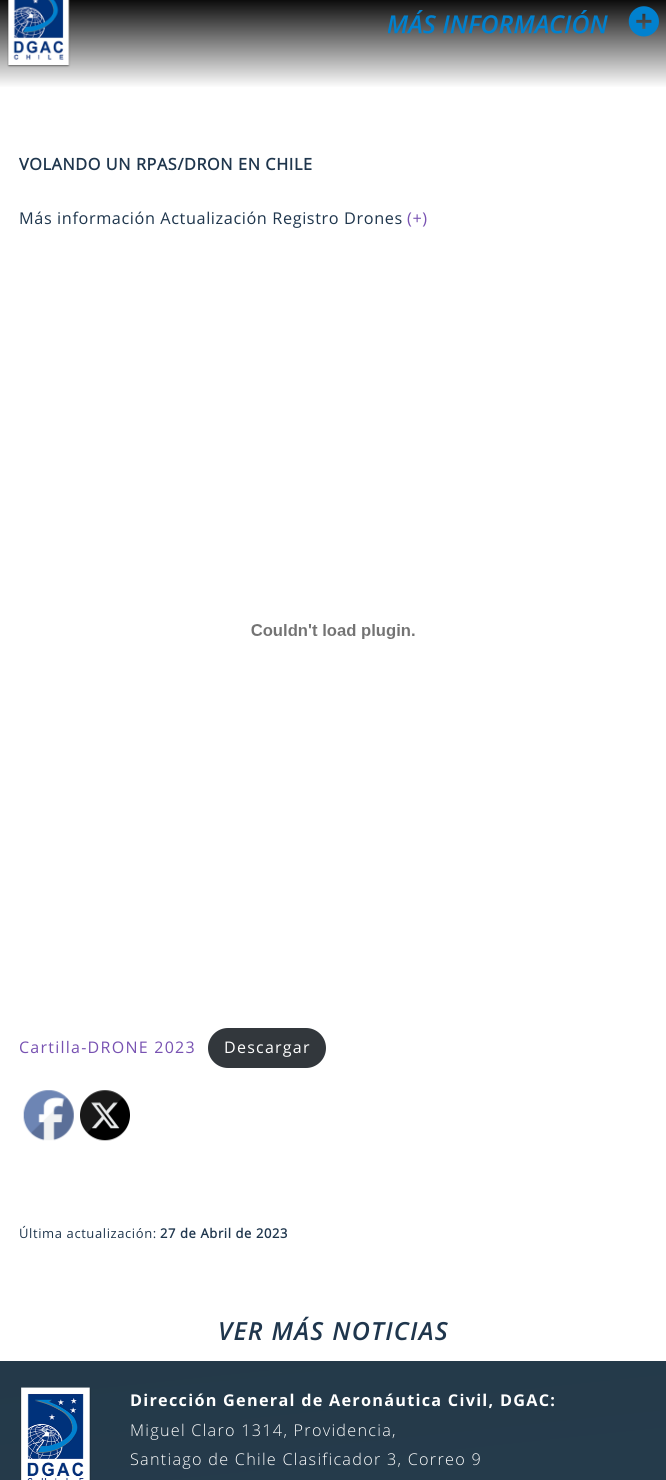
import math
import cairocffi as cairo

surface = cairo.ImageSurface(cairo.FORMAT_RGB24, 666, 1480)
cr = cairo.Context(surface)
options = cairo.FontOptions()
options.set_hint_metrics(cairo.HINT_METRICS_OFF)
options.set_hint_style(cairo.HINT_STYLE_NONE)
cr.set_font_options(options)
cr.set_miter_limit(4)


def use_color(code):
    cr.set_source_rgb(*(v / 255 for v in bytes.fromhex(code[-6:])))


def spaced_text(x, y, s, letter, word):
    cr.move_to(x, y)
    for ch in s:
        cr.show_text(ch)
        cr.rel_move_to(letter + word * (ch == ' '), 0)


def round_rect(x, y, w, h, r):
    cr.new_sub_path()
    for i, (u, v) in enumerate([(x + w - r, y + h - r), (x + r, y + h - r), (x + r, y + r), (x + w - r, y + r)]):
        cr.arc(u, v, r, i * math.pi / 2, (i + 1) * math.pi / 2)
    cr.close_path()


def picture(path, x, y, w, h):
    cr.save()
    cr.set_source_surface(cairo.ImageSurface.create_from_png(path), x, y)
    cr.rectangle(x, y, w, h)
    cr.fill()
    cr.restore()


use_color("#ffffff")
cr.paint()
gradient = cairo.LinearGradient(333, -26, 333, 88)
gradient.add_color_stop_rgba(0.19, 0, 0, 0, 1)
gradient.add_color_stop_rgba(1, 1, 1, 1, 1)
cr.set_source(gradient)
cr.rectangle(0, 0, 666, 87)
cr.fill()
picture("img1.png", 7, 0, 64, 68)
picture("img2.png", 388, 6, 271, 31)
cr.select_font_face("Open Sans", cairo.FONT_SLANT_NORMAL, cairo.FONT_WEIGHT_BOLD)
cr.set_font_size(16.25)
use_color("#1f364d")
spaced_text(19, 170, "VOLANDO UN RPAS/DRON EN CHILE", 0.6, 0)
cr.select_font_face("Open Sans")
spaced_text(19, 224, "Más información Actualización Registro Drones", 0.6, 0)
use_color("#7852b2")
spaced_text(407, 224, "(+)", 0.6, 0)
picture("img3.png", 251, 624, 164, 15)
cr.set_font_size(16)
spaced_text(19, 1053, "Cartilla-DRONE 2023", 1.25, 0)
use_color("#32373c")
round_rect(208, 1028, 118, 40, 20)
cr.fill()
use_color("#ffffff")
spaced_text(224, 1053, "Descargar", 1.25, 0)
picture("img4.png", 23, 1090, 51, 51)
picture("img5.png", 80, 1090, 50, 51)
cr.set_font_size(13)
use_color("#1f364d")
spaced_text(19, 1238, "Última actualización:", 0.6, 0)
cr.select_font_face("Open Sans", cairo.FONT_SLANT_NORMAL, cairo.FONT_WEIGHT_BOLD)
spaced_text(160, 1238, "27 de Abril de 2023", 0.6, 0)
cr.select_font_face("Open Sans SemiBold", cairo.FONT_SLANT_ITALIC)
cr.set_font_size(25)
spaced_text(218, 1340, "VER MÁS NOTICIAS", 1.25, 0)
gradient = cairo.LinearGradient(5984, 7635, 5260, 804)
gradient.add_color_stop_rgba(0, 0.318, 0.498, 0.643, 1)
gradient.add_color_stop_rgba(1, 0.141, 0.224, 0.286, 1)
cr.set_source(gradient)
cr.rectangle(0, 1361, 666, 119)
cr.fill()
picture("img6.png", 20, 1387, 71, 93)
cr.select_font_face("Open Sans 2", cairo.FONT_SLANT_NORMAL, cairo.FONT_WEIGHT_BOLD)
cr.set_font_size(16.25)
use_color("#ffffff")
spaced_text(130, 1406, "Dirección General de Aeronáutica Civil, DGAC:", 1.25, 0)
cr.select_font_face("Open Sans Light")
spaced_text(130, 1436, "Miguel Claro 1314, Providencia,", 1.25, 0)
spaced_text(130, 1465, "Santiago de Chile Clasificador 3, Correo 9", 1.25, 0)
surface.write_to_png("result.png")
